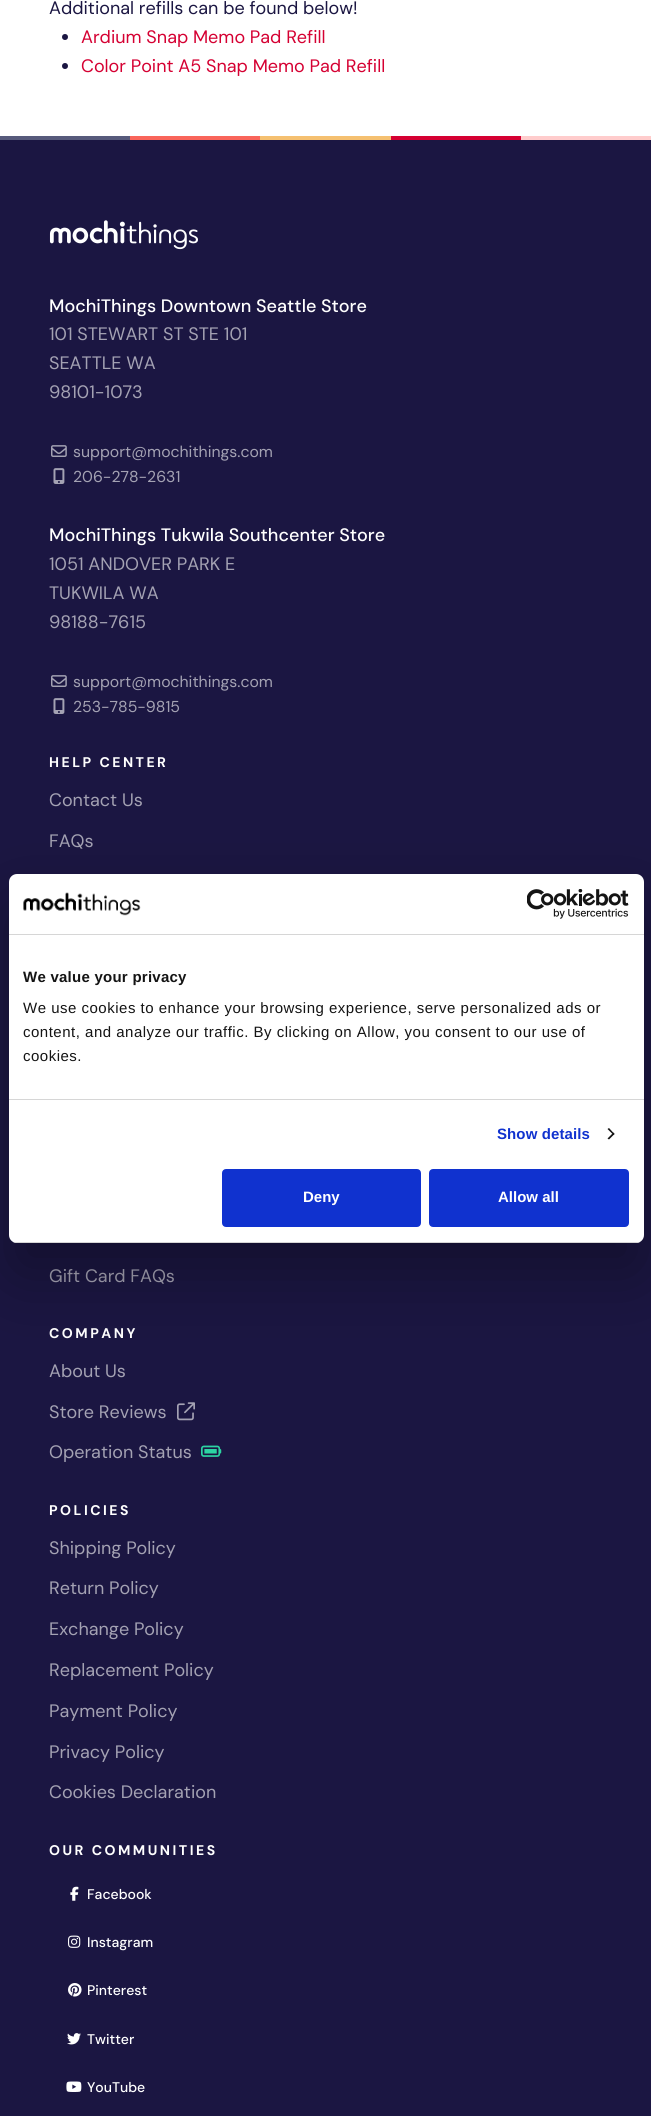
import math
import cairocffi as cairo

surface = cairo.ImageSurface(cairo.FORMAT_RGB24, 651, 2116)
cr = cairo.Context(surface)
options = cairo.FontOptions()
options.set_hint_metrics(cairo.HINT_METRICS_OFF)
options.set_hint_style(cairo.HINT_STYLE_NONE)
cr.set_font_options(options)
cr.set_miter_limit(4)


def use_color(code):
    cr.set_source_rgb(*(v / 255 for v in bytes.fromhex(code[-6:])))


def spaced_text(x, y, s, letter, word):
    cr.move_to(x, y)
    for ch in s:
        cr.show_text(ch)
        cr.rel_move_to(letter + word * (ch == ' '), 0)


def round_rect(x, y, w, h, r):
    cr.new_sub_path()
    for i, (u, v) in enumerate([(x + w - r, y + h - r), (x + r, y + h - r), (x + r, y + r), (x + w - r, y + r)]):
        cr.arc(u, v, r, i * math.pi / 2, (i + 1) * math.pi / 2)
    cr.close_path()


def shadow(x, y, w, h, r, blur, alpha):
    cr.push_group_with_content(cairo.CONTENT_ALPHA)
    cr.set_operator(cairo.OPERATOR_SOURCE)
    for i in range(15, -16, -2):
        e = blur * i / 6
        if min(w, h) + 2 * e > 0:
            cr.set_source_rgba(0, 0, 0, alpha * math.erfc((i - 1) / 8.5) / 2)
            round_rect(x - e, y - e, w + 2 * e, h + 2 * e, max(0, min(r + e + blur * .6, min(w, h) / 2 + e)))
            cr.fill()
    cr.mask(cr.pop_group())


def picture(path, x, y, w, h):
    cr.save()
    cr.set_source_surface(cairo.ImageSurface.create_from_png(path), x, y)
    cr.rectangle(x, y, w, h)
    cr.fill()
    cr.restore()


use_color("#ffffff")
cr.paint()
cr.select_font_face("DM Sans")
cr.set_font_size(18)
use_color("#1b1642")
cr.move_to(49, 14)
cr.show_text("Additional refills can be found below!")
cr.new_path()
cr.arc(65, 37, 3, 0, 2 * math.pi)
cr.fill()
use_color("#d50032")
cr.move_to(81, 43)
cr.show_text("Ardium Snap Memo Pad Refill")
use_color("#1b1642")
cr.new_path()
cr.arc(65, 66, 3, 0, 2 * math.pi)
cr.fill()
use_color("#d50032")
cr.move_to(81, 72)
cr.show_text("Color Point A5 Snap Memo Pad Refill")
use_color("#1b1642")
cr.rectangle(0, 140, 651, 1976)
cr.fill()
picture("img1.png", 0, 136, 651, 4)
picture("img2.png", 49, 220, 149, 30)
cr.select_font_face("DM Sans Medium")
use_color("#ffffff")
cr.move_to(49, 312)
cr.show_text("MochiThings Downtown Seattle Store")
cr.select_font_face("DM Sans")
use_color("#a4a2b3")
cr.move_to(49, 340)
cr.show_text("101 STEWART ST STE 101")
cr.move_to(49, 369)
cr.show_text("SEATTLE WA")
cr.move_to(49, 398)
cr.show_text("98101-1073")
picture("img3.png", 51, 445, 16, 12)
cr.set_font_size(15.8)
cr.move_to(73, 457)
cr.show_text("support@mochithings.com")
picture("img4.png", 53, 468, 12, 16)
cr.move_to(73, 482)
cr.show_text("206-278-2631")
cr.select_font_face("DM Sans Medium")
cr.set_font_size(18)
use_color("#ffffff")
cr.move_to(49, 541)
cr.show_text("MochiThings Tukwila Southcenter Store")
cr.select_font_face("DM Sans")
use_color("#a4a2b3")
cr.move_to(49, 570)
cr.show_text("1051 ANDOVER PARK E")
cr.move_to(49, 599)
cr.show_text("TUKWILA WA")
cr.move_to(49, 628)
cr.show_text("98188-7615")
picture("img3.png", 51, 675, 16, 12)
cr.set_font_size(15.8)
cr.move_to(73, 687)
cr.show_text("support@mochithings.com")
picture("img4.png", 53, 698, 12, 16)
cr.move_to(73, 712)
cr.show_text("253-785-9815")
cr.select_font_face("DM Sans", cairo.FONT_SLANT_NORMAL, cairo.FONT_WEIGHT_BOLD)
cr.set_font_size(14)
use_color("#ffffff")
spaced_text(49, 767, "HELP CENTER", 2.5, 0)
cr.select_font_face("DM Sans")
cr.set_font_size(18)
use_color("#a4a2b3")
cr.move_to(49, 806)
cr.show_text("Contact Us")
cr.move_to(49, 847)
cr.show_text("FAQs")
cr.move_to(49, 1282)
cr.show_text("Gift Card FAQs")
cr.select_font_face("DM Sans", cairo.FONT_SLANT_NORMAL, cairo.FONT_WEIGHT_BOLD)
cr.set_font_size(14)
use_color("#ffffff")
spaced_text(49, 1338, "COMPANY", 2.5, 0)
cr.select_font_face("DM Sans")
cr.set_font_size(18)
use_color("#a4a2b3")
cr.move_to(49, 1377)
cr.show_text("About Us")
cr.move_to(49, 1418)
cr.show_text("Store Reviews")
picture("img5.png", 177, 1402, 18, 19)
cr.move_to(49, 1458)
cr.show_text("Operation Status")
picture("img6.png", 201, 1445, 21, 12)
cr.select_font_face("DM Sans", cairo.FONT_SLANT_NORMAL, cairo.FONT_WEIGHT_BOLD)
cr.set_font_size(14)
use_color("#ffffff")
spaced_text(49, 1515, "POLICIES", 2.5, 0)
cr.select_font_face("DM Sans")
cr.set_font_size(18)
use_color("#a4a2b3")
cr.move_to(49, 1554)
cr.show_text("Shipping Policy")
cr.move_to(49, 1594)
cr.show_text("Return Policy")
cr.move_to(49, 1635)
cr.show_text("Exchange Policy")
cr.move_to(49, 1676)
cr.show_text("Replacement Policy")
cr.move_to(49, 1717)
cr.show_text("Payment Policy")
cr.move_to(49, 1758)
cr.show_text("Privacy Policy")
cr.move_to(49, 1798)
cr.show_text("Cookies Declaration")
cr.select_font_face("DM Sans", cairo.FONT_SLANT_NORMAL, cairo.FONT_WEIGHT_BOLD)
cr.set_font_size(14)
use_color("#ffffff")
spaced_text(49, 1855, "OUR COMMUNITIES", 2.5, 0)
picture("img7.png", 70, 1886, 9, 15)
cr.select_font_face("DM Sans Medium")
cr.move_to(87, 1899)
cr.show_text("Facebook")
picture("img8.png", 68, 1935, 13, 13)
cr.move_to(87, 1947)
cr.show_text("Instagram")
picture("img9.png", 68, 1983, 14, 14)
cr.move_to(87, 1995)
cr.show_text("Pinterest")
picture("img10.png", 67, 2033, 14, 12)
cr.move_to(87, 2044)
cr.show_text("Twitter")
picture("img11.png", 66, 2081, 16, 11)
cr.move_to(87, 2092)
cr.show_text("YouTube")
use_color("#000000")
shadow(9, 906, 635, 369, 8, 34, 0.3)
use_color("#ffffff")
round_rect(9, 874, 635, 369, 8)
cr.fill()
use_color("#d6d6d6")
cr.rectangle(9, 934, 635, 1)
cr.fill()
picture("img12.png", 23, 892, 118, 24)
picture("img13.png", 527, 889, 102, 30)
cr.rectangle(9, 1099, 635, 1)
cr.fill()
cr.select_font_face("Liberation Sans", cairo.FONT_SLANT_NORMAL, cairo.FONT_WEIGHT_BOLD)
cr.set_font_size(15)
use_color("#141414")
spaced_text(23, 982, "We value your privacy", 0.25, 0)
cr.select_font_face("Liberation Sans")
spaced_text(23, 1013, "We use cookies to enhance your browsing experience, serve personalized ads or", 0.5, 0)
spaced_text(23, 1037, "content, and analyze our traffic. By clicking on Allow, you consent to our use of", 0.5, 0)
spaced_text(23, 1061, "cookies.", 0.5, 0)
cr.select_font_face("Liberation Sans", cairo.FONT_SLANT_NORMAL, cairo.FONT_WEIGHT_BOLD)
use_color("#1032cf")
spaced_text(497, 1139, "Show details", 0.1, 0)
use_color("#141414")
cr.new_path()
cr.move_to(609, 1128)
cr.line_to(614.5, 1134)
cr.line_to(613.5, 1135)
cr.line_to(607.5, 1129)
cr.close_path()
cr.fill()
cr.new_path()
cr.move_to(613.5, 1132.5)
cr.line_to(614.5, 1134)
cr.line_to(609, 1139.5)
cr.line_to(607.5, 1138.5)
cr.close_path()
cr.fill()
cr.save()
round_rect(9, 874, 635, 369, 8)
cr.clip()
use_color("#d6d6d6")
cr.rectangle(9, 1242, 635, 1)
cr.fill()
cr.restore()
use_color("#1032cf")
round_rect(223, 1170, 197, 56, 3)
cr.fill_preserve()
cr.stroke()
use_color("#ffffff")
cr.move_to(303, 1202)
cr.show_text("Deny")
use_color("#1032cf")
round_rect(430, 1170, 198, 56, 3)
cr.fill_preserve()
cr.stroke()
use_color("#ffffff")
cr.move_to(498, 1202)
cr.show_text("Allow all")
surface.write_to_png("result.png")
